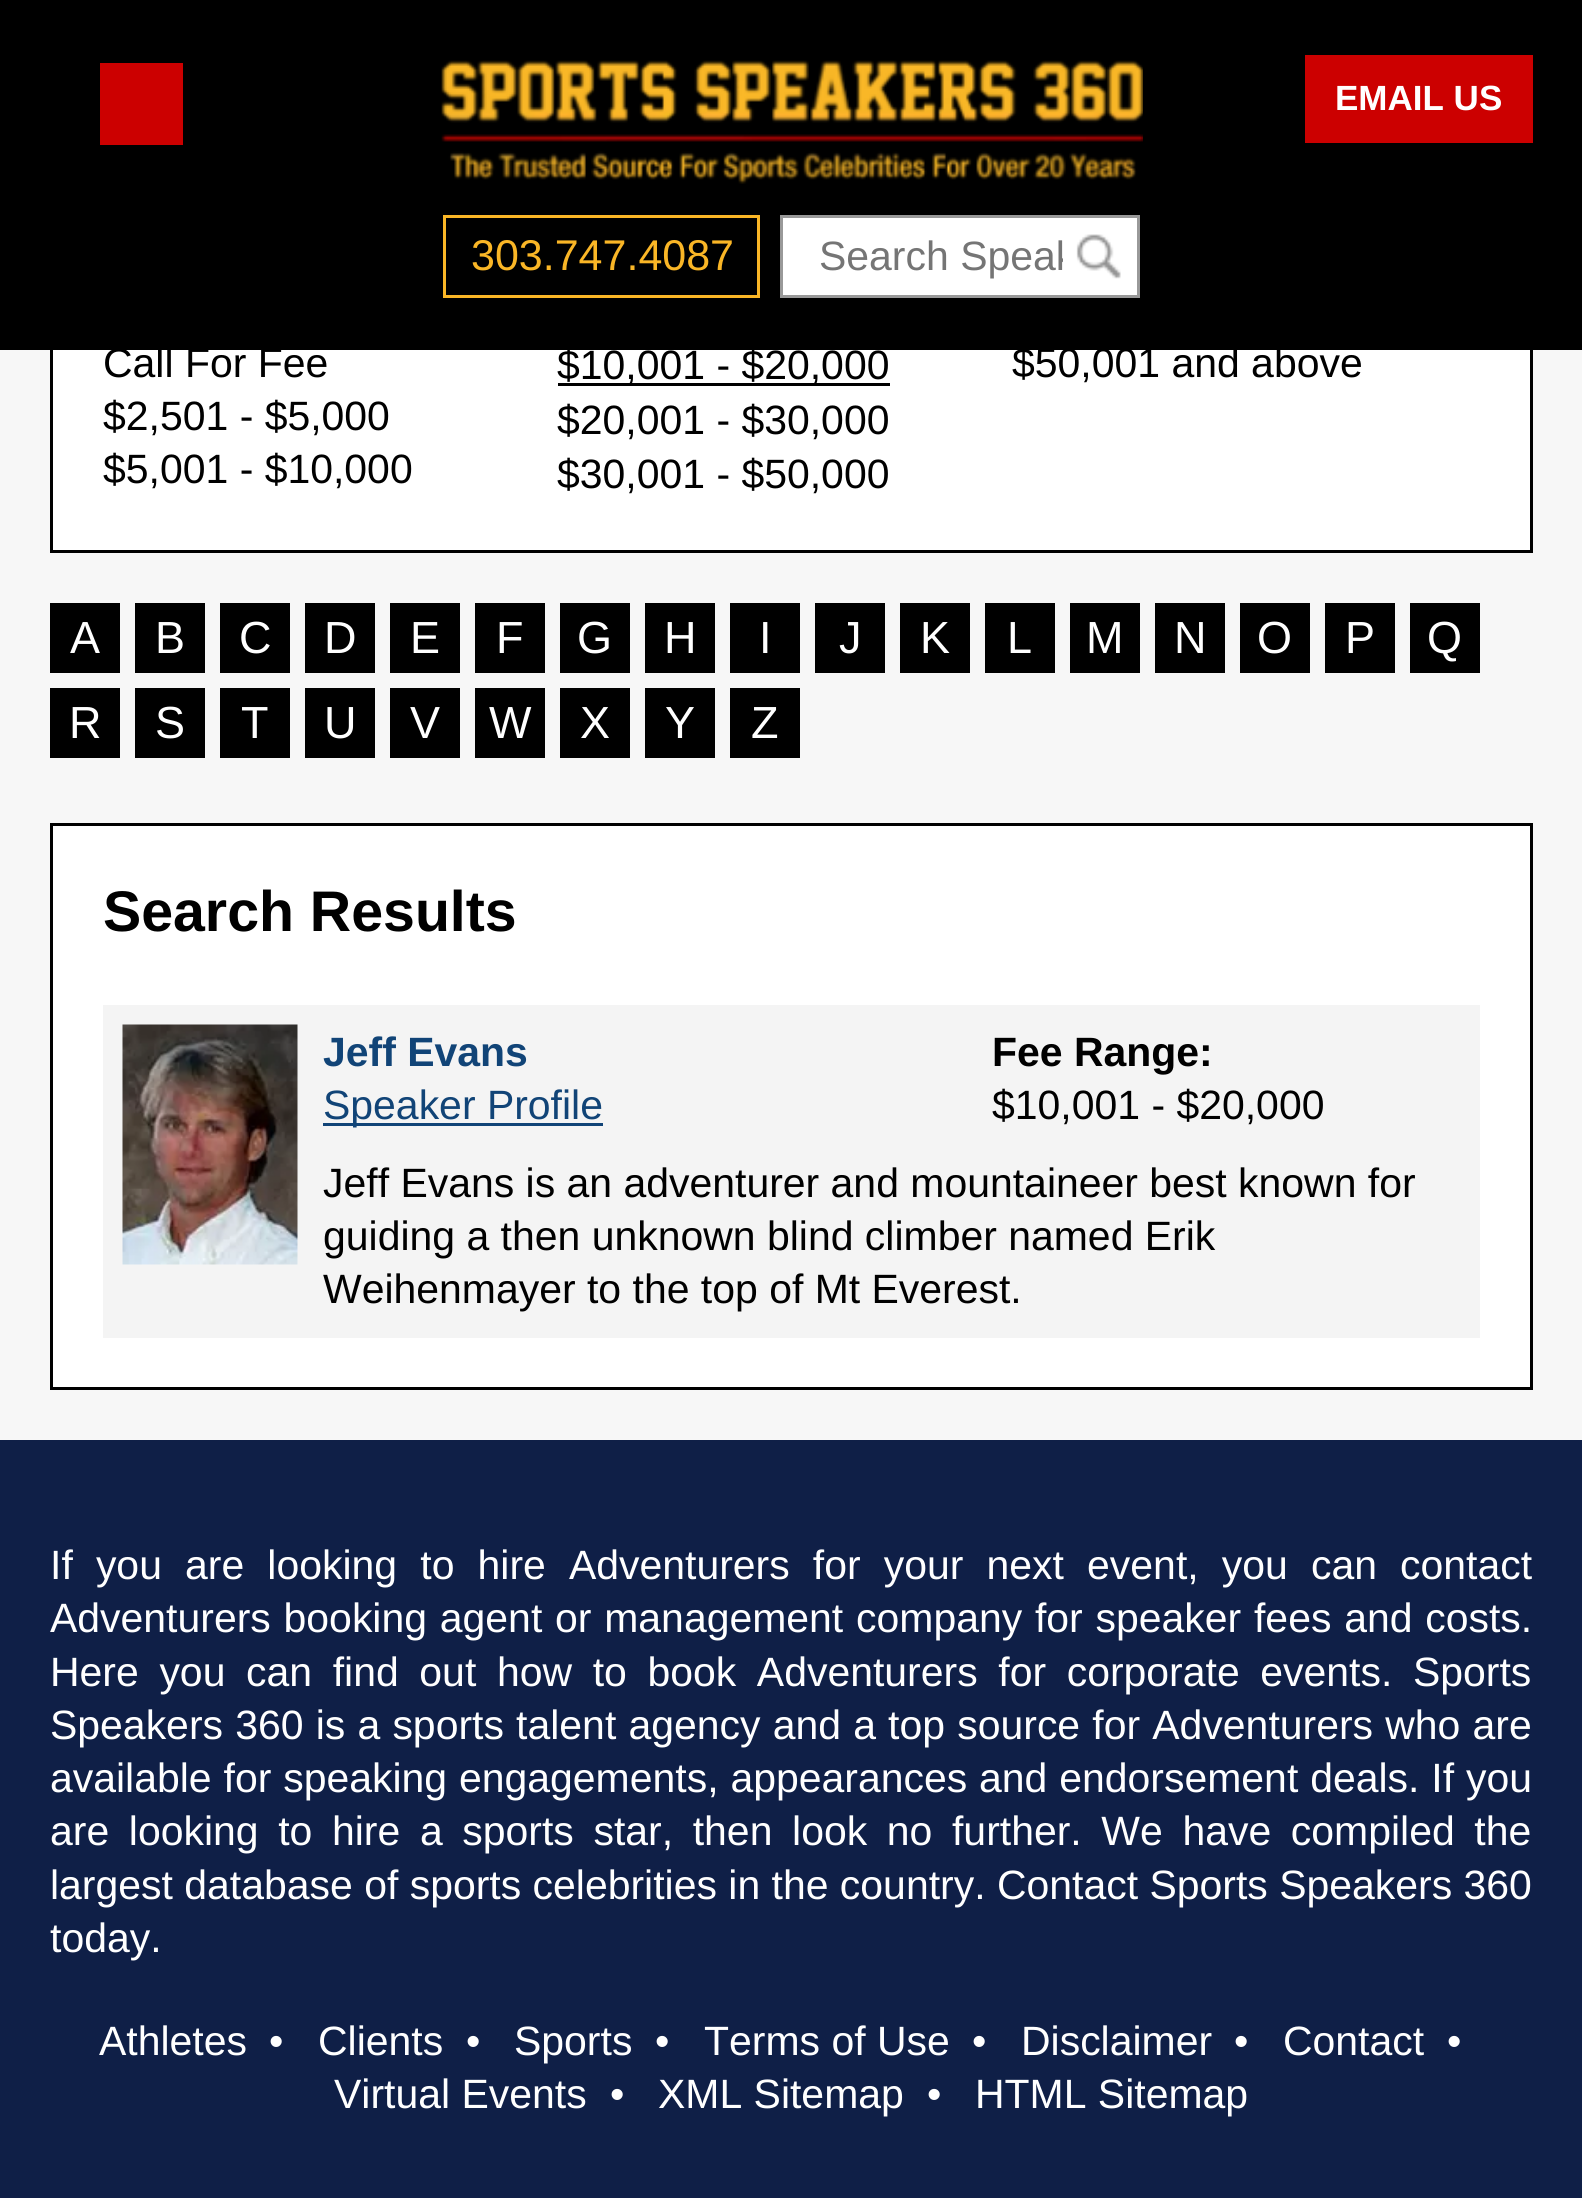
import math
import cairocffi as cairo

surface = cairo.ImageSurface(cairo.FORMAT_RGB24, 1582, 2198)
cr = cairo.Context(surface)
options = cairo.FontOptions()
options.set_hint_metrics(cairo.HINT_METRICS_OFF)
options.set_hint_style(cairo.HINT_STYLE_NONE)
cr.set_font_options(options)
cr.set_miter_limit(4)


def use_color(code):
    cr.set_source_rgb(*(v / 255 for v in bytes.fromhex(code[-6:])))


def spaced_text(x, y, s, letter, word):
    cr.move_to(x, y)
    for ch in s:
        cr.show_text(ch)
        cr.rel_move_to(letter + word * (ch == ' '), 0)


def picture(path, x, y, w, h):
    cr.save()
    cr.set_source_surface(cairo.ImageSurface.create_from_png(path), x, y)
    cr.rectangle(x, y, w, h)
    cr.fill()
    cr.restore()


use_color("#f7f7f7")
cr.paint()
use_color("#ffffff")
cr.rectangle(53, 350, 1477, 200)
cr.fill()
cr.rectangle(51.5, 149.5, 1480, 402)
use_color("#000000")
cr.set_line_width(3)
cr.stroke()
cr.rectangle(0, 0, 1582, 350)
cr.fill()
use_color("#cc0000")
cr.rectangle(100, 63, 83, 82)
cr.fill()
picture("img1.png", 441, 60, 702, 124)
cr.rectangle(1305, 55, 228, 88)
cr.fill()
cr.select_font_face("Liberation Sans", cairo.FONT_SLANT_NORMAL, cairo.FONT_WEIGHT_BOLD)
cr.set_font_size(35)
use_color("#ffffff")
cr.move_to(1335, 110)
cr.show_text("EMAIL US")
cr.rectangle(444.5, 216.5, 314, 80)
use_color("#fab626")
cr.stroke()
cr.select_font_face("Liberation Sans")
cr.set_font_size(43)
cr.move_to(471, 270)
cr.show_text("303.747.4087")
use_color("#ffffff")
cr.rectangle(781.5, 216.5, 357, 80)
cr.fill_preserve()
use_color("#999999")
cr.stroke()
cr.save()
cr.rectangle(820, 233, 243, 47)
cr.clip()
cr.set_font_size(40.95)
use_color("#757575")
cr.move_to(819, 270)
cr.show_text("Search Speak")
cr.restore()
picture("img2.png", 1076, 234, 45, 45)
cr.set_font_size(40.95)
use_color("#000000")
cr.move_to(103, 377)
cr.show_text("Call For Fee")
cr.move_to(103, 430)
cr.show_text("$2,501 - $5,000")
cr.move_to(103, 483)
cr.show_text("$5,001 - $10,000")
cr.rectangle(558, 383, 332, 3)
cr.fill()
cr.move_to(557, 379)
cr.show_text("$10,001 - $20,000")
cr.move_to(557, 434)
cr.show_text("$20,001 - $30,000")
cr.move_to(557, 488)
cr.show_text("$30,001 - $50,000")
cr.move_to(1012, 377)
cr.show_text("$50,001 and above")
cr.rectangle(50, 603, 70, 70)
cr.fill()
cr.set_font_size(45)
use_color("#ffffff")
cr.move_to(70, 653)
cr.show_text("A")
use_color("#000000")
cr.rectangle(135, 603, 70, 70)
cr.fill()
use_color("#ffffff")
cr.move_to(155, 653)
cr.show_text("B")
use_color("#000000")
cr.rectangle(220, 603, 70, 70)
cr.fill()
use_color("#ffffff")
cr.move_to(239, 653)
cr.show_text("C")
use_color("#000000")
cr.rectangle(305, 603, 70, 70)
cr.fill()
use_color("#ffffff")
cr.move_to(324, 653)
cr.show_text("D")
use_color("#000000")
cr.rectangle(390, 603, 70, 70)
cr.fill()
use_color("#ffffff")
cr.move_to(410, 653)
cr.show_text("E")
use_color("#000000")
cr.rectangle(475, 603, 70, 70)
cr.fill()
use_color("#ffffff")
cr.move_to(496, 653)
cr.show_text("F")
use_color("#000000")
cr.rectangle(560, 603, 70, 70)
cr.fill()
use_color("#ffffff")
cr.move_to(577, 653)
cr.show_text("G")
use_color("#000000")
cr.rectangle(645, 603, 70, 70)
cr.fill()
use_color("#ffffff")
cr.move_to(664, 653)
cr.show_text("H")
use_color("#000000")
cr.rectangle(730, 603, 70, 70)
cr.fill()
use_color("#ffffff")
cr.move_to(759, 653)
cr.show_text("I")
use_color("#000000")
cr.rectangle(815, 603, 70, 70)
cr.fill()
use_color("#ffffff")
cr.move_to(839, 653)
cr.show_text("J")
use_color("#000000")
cr.rectangle(900, 603, 70, 70)
cr.fill()
use_color("#ffffff")
cr.move_to(920, 653)
cr.show_text("K")
use_color("#000000")
cr.rectangle(985, 603, 70, 70)
cr.fill()
use_color("#ffffff")
cr.move_to(1007, 653)
cr.show_text("L")
use_color("#000000")
cr.rectangle(1070, 603, 70, 70)
cr.fill()
use_color("#ffffff")
cr.move_to(1086, 653)
cr.show_text("M")
use_color("#000000")
cr.rectangle(1155, 603, 70, 70)
cr.fill()
use_color("#ffffff")
cr.move_to(1174, 653)
cr.show_text("N")
use_color("#000000")
cr.rectangle(1240, 603, 70, 70)
cr.fill()
use_color("#ffffff")
cr.move_to(1257, 653)
cr.show_text("O")
use_color("#000000")
cr.rectangle(1325, 603, 70, 70)
cr.fill()
use_color("#ffffff")
cr.move_to(1345, 653)
cr.show_text("P")
use_color("#000000")
cr.rectangle(1410, 603, 70, 70)
cr.fill()
use_color("#ffffff")
cr.move_to(1427, 653)
cr.show_text("Q")
use_color("#000000")
cr.rectangle(50, 688, 70, 70)
cr.fill()
use_color("#ffffff")
cr.move_to(69, 738)
cr.show_text("R")
use_color("#000000")
cr.rectangle(135, 688, 70, 70)
cr.fill()
use_color("#ffffff")
cr.move_to(155, 738)
cr.show_text("S")
use_color("#000000")
cr.rectangle(220, 688, 70, 70)
cr.fill()
use_color("#ffffff")
cr.move_to(241, 738)
cr.show_text("T")
use_color("#000000")
cr.rectangle(305, 688, 70, 70)
cr.fill()
use_color("#ffffff")
cr.move_to(324, 738)
cr.show_text("U")
use_color("#000000")
cr.rectangle(390, 688, 70, 70)
cr.fill()
use_color("#ffffff")
cr.move_to(410, 738)
cr.show_text("V")
use_color("#000000")
cr.rectangle(475, 688, 70, 70)
cr.fill()
use_color("#ffffff")
cr.move_to(489, 738)
cr.show_text("W")
use_color("#000000")
cr.rectangle(560, 688, 70, 70)
cr.fill()
use_color("#ffffff")
cr.move_to(580, 738)
cr.show_text("X")
use_color("#000000")
cr.rectangle(645, 688, 70, 70)
cr.fill()
use_color("#ffffff")
cr.move_to(665, 738)
cr.show_text("Y")
use_color("#000000")
cr.rectangle(730, 688, 70, 70)
cr.fill()
use_color("#ffffff")
cr.move_to(751, 738)
cr.show_text("Z")
cr.rectangle(51.5, 824.5, 1480, 564)
cr.fill_preserve()
use_color("#000000")
cr.stroke()
cr.select_font_face("Liberation Sans", cairo.FONT_SLANT_NORMAL, cairo.FONT_WEIGHT_BOLD)
cr.set_font_size(57.25)
cr.move_to(103, 931)
cr.show_text("Search Results")
use_color("#f4f4f4")
cr.rectangle(103, 1005, 1377, 333)
cr.fill()
picture("img3.png", 122, 1024, 176, 241)
cr.set_font_size(40.95)
use_color("#114477")
cr.move_to(323, 1066)
cr.show_text("Jeff Evans")
cr.rectangle(323, 1123, 280, 3)
cr.fill()
cr.select_font_face("Liberation Sans")
cr.move_to(323, 1119)
cr.show_text("Speaker Profile")
cr.select_font_face("Liberation Sans", cairo.FONT_SLANT_NORMAL, cairo.FONT_WEIGHT_BOLD)
use_color("#000000")
cr.move_to(992, 1066)
cr.show_text("Fee Range:")
cr.select_font_face("Liberation Sans")
cr.move_to(992, 1119)
cr.show_text("$10,001 - $20,000")
cr.move_to(323, 1197)
cr.show_text("Jeff Evans is an adventurer and mountaineer best known for")
cr.move_to(323, 1250)
cr.show_text("guiding a then unknown blind climber named Erik")
cr.move_to(323, 1303)
cr.show_text("Weihenmayer to the top of Mt Everest.")
use_color("#0f1f47")
cr.rectangle(0, 1440, 1582, 758)
cr.fill()
use_color("#ffffff")
spaced_text(50, 1579, "If you are looking to hire Adventurers for your next event, you can contact", 0, 11.75)
spaced_text(50, 1632, "Adventurers booking agent or management company for speaker fees and costs.", 0, 1.4)
spaced_text(50, 1686, "Here you can find out how to book Adventurers for corporate events. Sports", 0, 9.25)
spaced_text(50, 1739, "Speakers 360 is a sports talent agency and a top source for Adventurers who are", 0, 0.8)
spaced_text(50, 1792, "available for speaking engagements, appearances and endorsement deals. If you", 0, 0.5)
spaced_text(50, 1845, "are looking to hire a sports star, then look no further. We have compiled the", 0, 8.25)
cr.move_to(50, 1899)
cr.show_text("largest database of sports celebrities in the country. Contact Sports Speakers 360")
cr.move_to(50, 1952)
cr.show_text("today.")
cr.move_to(99, 2055)
cr.show_text("Athletes")
cr.move_to(269, 2055)
cr.show_text("•")
cr.move_to(318, 2055)
cr.show_text("Clients")
cr.move_to(466, 2055)
cr.show_text("•")
cr.move_to(514, 2055)
cr.show_text("Sports")
cr.move_to(655, 2055)
cr.show_text("•")
cr.move_to(704, 2055)
cr.show_text("Terms of Use")
cr.move_to(972, 2055)
cr.show_text("•")
cr.move_to(1021, 2055)
cr.show_text("Disclaimer")
cr.move_to(1234, 2055)
cr.show_text("•")
cr.move_to(1283, 2055)
cr.show_text("Contact")
cr.move_to(1447, 2055)
cr.show_text("•")
cr.move_to(334, 2108)
cr.show_text("Virtual Events")
cr.move_to(610, 2108)
cr.show_text("•")
cr.move_to(658, 2108)
cr.show_text("XML Sitemap")
cr.move_to(927, 2108)
cr.show_text("•")
cr.move_to(975, 2108)
cr.show_text("HTML Sitemap")
surface.write_to_png("result.png")
